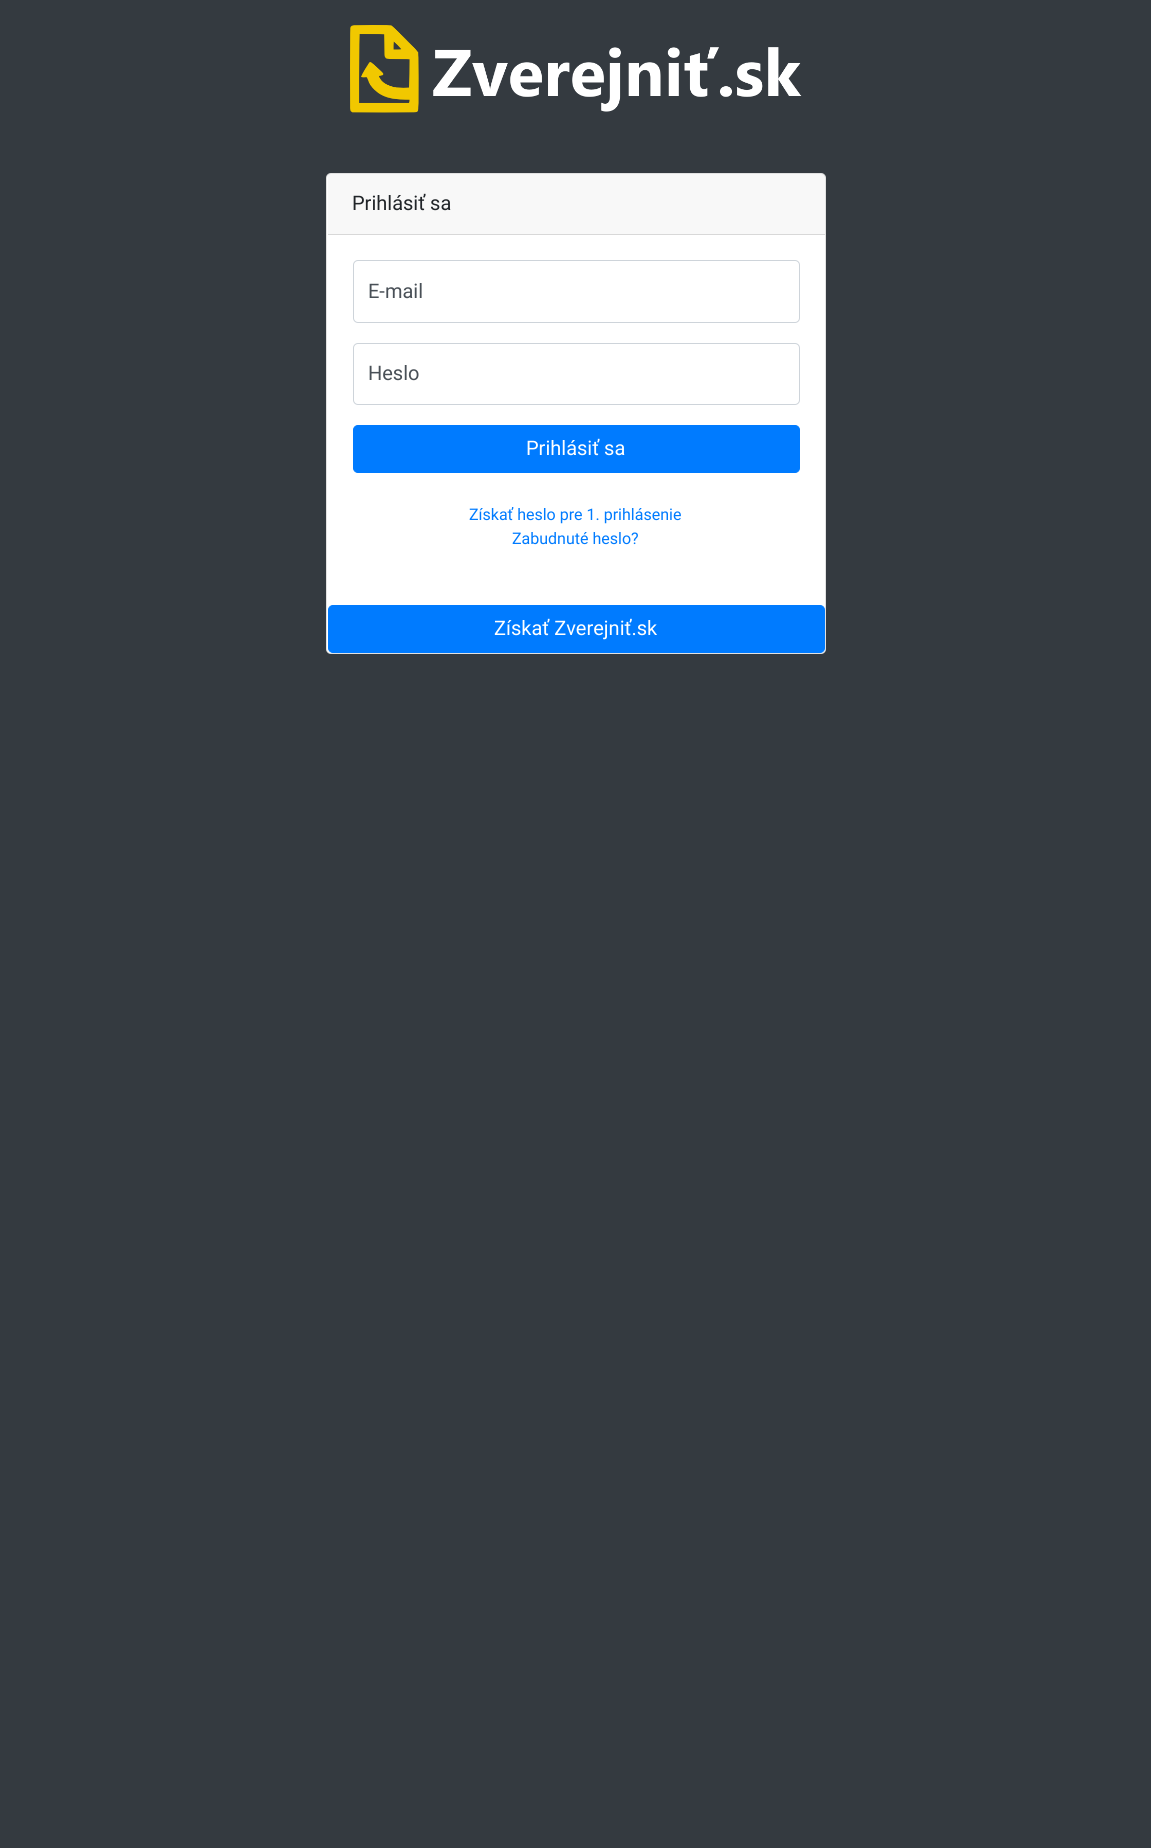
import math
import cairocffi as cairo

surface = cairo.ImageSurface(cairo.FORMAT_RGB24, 1151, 1848)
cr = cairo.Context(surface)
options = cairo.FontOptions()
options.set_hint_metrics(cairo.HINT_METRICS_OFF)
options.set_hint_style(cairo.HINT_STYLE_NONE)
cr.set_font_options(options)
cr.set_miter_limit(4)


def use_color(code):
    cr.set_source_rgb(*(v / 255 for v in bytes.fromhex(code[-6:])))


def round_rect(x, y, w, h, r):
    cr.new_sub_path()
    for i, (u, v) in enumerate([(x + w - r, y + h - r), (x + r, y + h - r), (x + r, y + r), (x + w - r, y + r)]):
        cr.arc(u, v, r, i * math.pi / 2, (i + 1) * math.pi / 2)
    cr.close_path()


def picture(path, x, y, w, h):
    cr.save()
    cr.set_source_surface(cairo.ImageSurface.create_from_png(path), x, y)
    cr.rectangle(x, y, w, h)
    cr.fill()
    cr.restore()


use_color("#343a40")
cr.paint()
picture("img1.png", 350, 25, 452, 88)
use_color("#ffffff")
round_rect(326, 173, 500, 481, 5)
cr.fill()
round_rect(326.5, 173.5, 499, 480, 4.5)
cr.set_source_rgba(0, 0, 0, 0.12)
cr.set_line_width(1)
cr.stroke()
cr.set_source_rgba(0, 0, 0, 0.03)
cr.rectangle(328, 174, 497, 60)
cr.fill()
use_color("#d8d8d8")
cr.rectangle(328, 234, 497, 1)
cr.fill()
cr.select_font_face("Roboto")
cr.set_font_size(20)
use_color("#212529")
cr.move_to(352, 210)
cr.show_text("Prihlásiť sa")
round_rect(353.5, 260.5, 446, 62, 4.5)
use_color("#ced4da")
cr.stroke()
use_color("#495057")
cr.move_to(368, 298)
cr.show_text("E-mail")
round_rect(353.5, 343.5, 446, 61, 4.5)
use_color("#ced4da")
cr.stroke()
use_color("#495057")
cr.move_to(368, 380)
cr.show_text("Heslo")
use_color("#007bff")
round_rect(353.5, 425.5, 446, 47, 4.5)
cr.fill_preserve()
cr.stroke()
use_color("#ffffff")
cr.move_to(526, 455)
cr.show_text("Prihlásiť sa")
cr.set_font_size(16)
use_color("#007bff")
cr.move_to(469, 520)
cr.show_text("Získať heslo pre 1. prihlásenie")
cr.move_to(512, 544)
cr.show_text("Zabudnuté heslo?")
round_rect(328.5, 605.5, 496, 47, 4.5)
cr.fill_preserve()
cr.stroke()
cr.set_font_size(20)
use_color("#ffffff")
cr.move_to(494, 635)
cr.show_text("Získať Zverejniť.sk")
surface.write_to_png("result.png")
